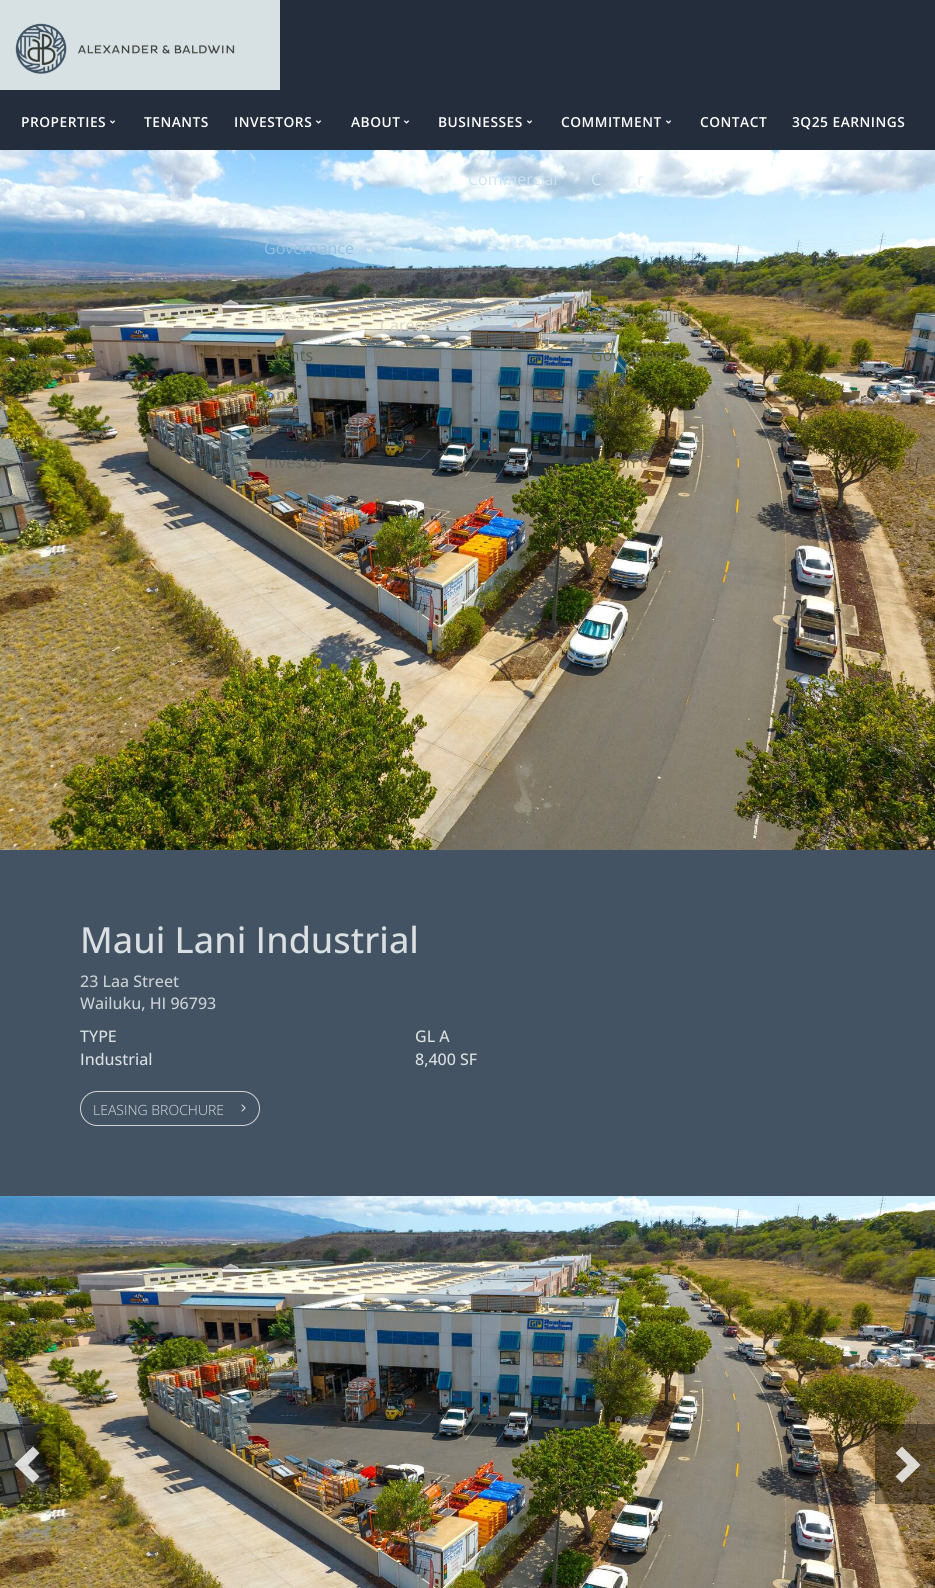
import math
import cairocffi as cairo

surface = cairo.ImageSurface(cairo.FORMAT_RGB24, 935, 1588)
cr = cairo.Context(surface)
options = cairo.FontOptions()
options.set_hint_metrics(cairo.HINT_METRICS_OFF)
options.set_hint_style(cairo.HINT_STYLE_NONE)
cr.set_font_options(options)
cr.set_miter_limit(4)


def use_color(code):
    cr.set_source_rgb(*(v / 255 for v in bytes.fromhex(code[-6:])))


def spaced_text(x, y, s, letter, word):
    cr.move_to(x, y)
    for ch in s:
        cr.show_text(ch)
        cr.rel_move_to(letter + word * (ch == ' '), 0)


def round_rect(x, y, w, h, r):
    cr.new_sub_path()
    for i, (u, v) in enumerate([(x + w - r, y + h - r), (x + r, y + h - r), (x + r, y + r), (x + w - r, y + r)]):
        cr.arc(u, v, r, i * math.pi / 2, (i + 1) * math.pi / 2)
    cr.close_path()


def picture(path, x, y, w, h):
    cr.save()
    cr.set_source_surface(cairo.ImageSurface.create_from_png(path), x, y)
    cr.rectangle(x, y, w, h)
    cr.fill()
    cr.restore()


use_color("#242d3c")
cr.paint()
use_color("#d7e0e2")
cr.rectangle(0, 0, 280, 90)
cr.fill()
picture("img1.png", 15, 23, 220, 51)
cr.select_font_face("Open Sans SemiBold")
cr.set_font_size(13.75)
use_color("#ffffff")
spaced_text(21, 127, "PROPERTIES", 0.5, 0)
picture("img2.png", 110, 120, 5, 4)
spaced_text(144, 127, "TENANTS", 0.5, 0)
spaced_text(234, 127, "INVESTORS", 0.5, 0)
picture("img2.png", 316, 120, 5, 4)
picture("img3.png", 0, 150, 935, 700)
cr.select_font_face("Open Sans")
cr.set_font_size(16)
use_color("#94c1e3")
cr.move_to(264, 254)
cr.show_text("Governance")
use_color("#e1ddca")
cr.move_to(264, 322)
cr.show_text("Releases")
use_color("#575d4a")
cr.move_to(264, 361)
cr.show_text("Events")
use_color("#7d8170")
cr.move_to(276, 400)
cr.show_text("n")
use_color("#676761")
cr.move_to(264, 468)
cr.show_text("Investor")
cr.select_font_face("Open Sans SemiBold")
cr.set_font_size(13.75)
use_color("#ffffff")
spaced_text(351, 127, "ABOUT", 0.5, 0)
picture("img2.png", 404, 120, 5, 4)
cr.select_font_face("Open Sans")
cr.set_font_size(16)
use_color("#d6d6c7")
cr.move_to(380, 331)
cr.show_text("Careers")
cr.select_font_face("Open Sans SemiBold")
cr.set_font_size(13.75)
use_color("#ffffff")
spaced_text(438, 127, "BUSINESSES", 0.5, 0)
picture("img2.png", 527, 120, 5, 4)
cr.select_font_face("Open Sans")
cr.set_font_size(16)
use_color("#cfe2f0")
cr.move_to(468, 185)
cr.show_text("Commercial")
cr.select_font_face("Open Sans SemiBold")
cr.set_font_size(13.75)
use_color("#ffffff")
spaced_text(561, 127, "COMMITMENT", 0.5, 0)
picture("img2.png", 666, 120, 5, 4)
cr.select_font_face("Open Sans")
cr.set_font_size(16)
use_color("#dceaf3")
cr.move_to(591, 185)
cr.show_text("C")
cr.move_to(637, 185)
cr.show_text("r")
use_color("#7d7d55")
cr.move_to(591, 322)
cr.show_text("Sustainability")
use_color("#677044")
cr.move_to(591, 361)
cr.show_text("Governance")
use_color("#797538")
cr.move_to(591, 468)
cr.show_text("Vision")
use_color("#ad9875")
cr.move_to(640, 468)
cr.show_text("&")
cr.select_font_face("Open Sans SemiBold")
cr.set_font_size(13.75)
use_color("#ffffff")
spaced_text(700, 127, "CONTACT", 0.5, 0)
spaced_text(792, 127, "3Q25 EARNINGS", 0.5, 0)
use_color("#435363")
cr.rectangle(0, 850, 935, 346)
cr.fill()
cr.select_font_face("Open Sans Medium")
cr.set_font_size(36)
use_color("#dadfe1")
cr.move_to(80, 953)
cr.show_text("Maui Lani Industrial")
cr.set_font_size(16)
use_color("#cbd1d4")
cr.move_to(80, 987)
cr.show_text("23 Laa Street")
cr.move_to(80, 1009)
cr.show_text("Wailuku, HI 96793")
use_color("#dadfe1")
cr.move_to(80, 1042)
cr.show_text("TYPE")
cr.move_to(80, 1065)
cr.show_text("Industrial")
cr.move_to(415, 1042)
cr.show_text("GL A")
cr.move_to(415, 1065)
cr.show_text("8,400 SF")
round_rect(80.5, 1091.5, 179, 34, 17)
use_color("#d3d3d3")
cr.set_line_width(1)
cr.stroke()
cr.select_font_face("Open Sans Light")
cr.set_font_size(14)
use_color("#dadfe1")
cr.move_to(93, 1115)
cr.show_text("LEASING BROCHURE")
picture("img4.png", 241, 1104, 5, 8)
picture("img5.png", 0, 1196, 935, 392)
cr.set_source_rgba(0, 0, 0, 0.4)
cr.rectangle(0, 1424, 60, 80)
cr.fill()
cr.set_source_rgba(1, 1, 1, 0.8)
cr.new_path()
cr.move_to(39.5, 1453)
cr.line_to(28, 1465)
cr.line_to(39.5, 1476.5)
cr.line_to(33, 1483)
cr.line_to(14.5, 1464.5)
cr.line_to(33, 1446.5)
cr.close_path()
cr.fill()
cr.set_source_rgba(0, 0, 0, 0.4)
cr.rectangle(875, 1424, 60, 80)
cr.fill()
cr.set_source_rgba(1, 1, 1, 0.8)
cr.new_path()
cr.move_to(920.5, 1465)
cr.line_to(902, 1483)
cr.line_to(895.5, 1476.5)
cr.line_to(907.5, 1465)
cr.line_to(895.5, 1453)
cr.line_to(902, 1446.5)
cr.close_path()
cr.fill()
surface.write_to_png("result.png")
